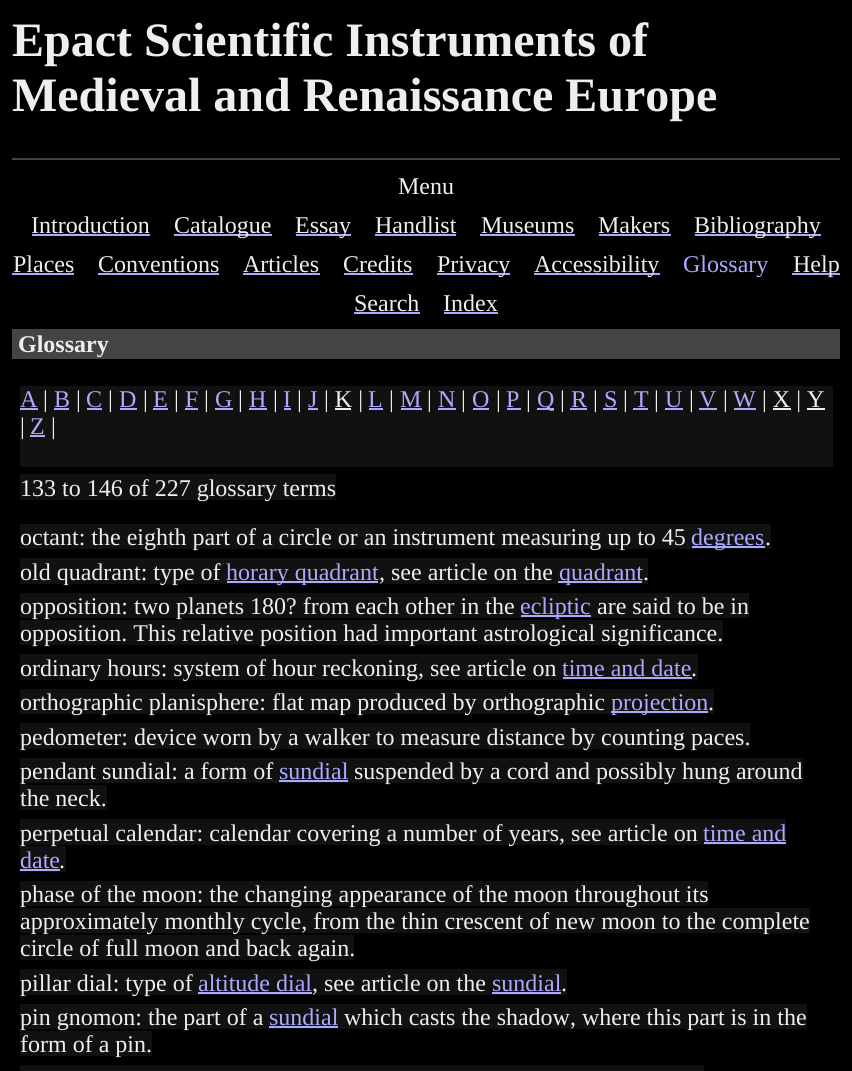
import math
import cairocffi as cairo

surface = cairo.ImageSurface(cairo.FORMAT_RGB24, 852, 1071)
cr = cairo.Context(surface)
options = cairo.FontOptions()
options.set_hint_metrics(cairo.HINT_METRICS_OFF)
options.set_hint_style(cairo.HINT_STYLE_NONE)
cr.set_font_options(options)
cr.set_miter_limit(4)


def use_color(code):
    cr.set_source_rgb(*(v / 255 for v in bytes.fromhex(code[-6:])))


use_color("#000000")
cr.paint()
cr.select_font_face("Liberation Serif", cairo.FONT_SLANT_NORMAL, cairo.FONT_WEIGHT_BOLD)
cr.set_font_size(48)
use_color("#eeeeee")
cr.move_to(12, 56)
cr.show_text("Epact Scientific Instruments of")
cr.move_to(12, 111)
cr.show_text("Medieval and Renaissance Europe")
use_color("#444444")
cr.rectangle(12, 158, 828, 2)
cr.fill()
cr.select_font_face("Liberation Serif")
cr.set_font_size(24)
use_color("#eeeeee")
cr.move_to(398, 194)
cr.show_text("Menu")
cr.move_to(31, 233)
cr.show_text("Introduction")
use_color("#aaaaff")
cr.rectangle(32, 234, 118, 2)
cr.fill()
cr.rectangle(174, 234, 98, 2)
cr.fill()
use_color("#eeeeee")
cr.move_to(174, 233)
cr.show_text("Catalogue")
use_color("#aaaaff")
cr.rectangle(296, 234, 55, 2)
cr.fill()
use_color("#eeeeee")
cr.move_to(295, 233)
cr.show_text("Essay")
cr.move_to(375, 233)
cr.show_text("Handlist")
use_color("#aaaaff")
cr.rectangle(375, 234, 81, 2)
cr.fill()
use_color("#eeeeee")
cr.move_to(481, 233)
cr.show_text("Museums")
use_color("#aaaaff")
cr.rectangle(480, 234, 95, 2)
cr.fill()
use_color("#eeeeee")
cr.move_to(598, 233)
cr.show_text("Makers")
use_color("#aaaaff")
cr.rectangle(599, 234, 72, 2)
cr.fill()
cr.rectangle(695, 234, 126, 2)
cr.fill()
use_color("#eeeeee")
cr.move_to(694, 233)
cr.show_text("Bibliography")
cr.move_to(13, 272)
cr.show_text("Places")
use_color("#aaaaff")
cr.rectangle(12, 273, 62, 2)
cr.fill()
use_color("#eeeeee")
cr.move_to(98, 272)
cr.show_text("Conventions")
use_color("#aaaaff")
cr.rectangle(98, 273, 121, 2)
cr.fill()
use_color("#eeeeee")
cr.move_to(243, 272)
cr.show_text("Articles")
use_color("#aaaaff")
cr.rectangle(243, 273, 77, 2)
cr.fill()
use_color("#eeeeee")
cr.move_to(343, 272)
cr.show_text("Credits")
use_color("#aaaaff")
cr.rectangle(344, 273, 69, 2)
cr.fill()
cr.rectangle(437, 273, 73, 2)
cr.fill()
use_color("#eeeeee")
cr.move_to(437, 272)
cr.show_text("Privacy")
use_color("#aaaaff")
cr.rectangle(534, 273, 126, 2)
cr.fill()
use_color("#eeeeee")
cr.move_to(534, 272)
cr.show_text("Accessibility")
use_color("#aaaaff")
cr.move_to(683, 272)
cr.show_text("Glossary")
cr.rectangle(792, 273, 48, 2)
cr.fill()
use_color("#eeeeee")
cr.move_to(793, 272)
cr.show_text("Help")
cr.move_to(354, 311)
cr.show_text("Search")
use_color("#aaaaff")
cr.rectangle(354, 312, 66, 2)
cr.fill()
use_color("#eeeeee")
cr.move_to(443, 311)
cr.show_text("Index")
use_color("#aaaaff")
cr.rectangle(444, 312, 54, 2)
cr.fill()
use_color("#444444")
cr.rectangle(12, 329, 828, 30)
cr.fill()
cr.select_font_face("Liberation Serif", cairo.FONT_SLANT_NORMAL, cairo.FONT_WEIGHT_BOLD)
use_color("#eeeeee")
cr.move_to(18, 352)
cr.show_text("Glossary")
use_color("#111111")
cr.rectangle(20, 386, 813, 81)
cr.fill()
cr.select_font_face("Liberation Serif")
use_color("#aaaaff")
cr.move_to(20, 407)
cr.show_text("A")
cr.rectangle(20, 408, 18, 2)
cr.fill()
use_color("#eeeeee")
cr.move_to(43, 407)
cr.show_text("|")
use_color("#aaaaff")
cr.move_to(54, 407)
cr.show_text("B")
cr.rectangle(54, 408, 15, 2)
cr.fill()
use_color("#eeeeee")
cr.move_to(76, 407)
cr.show_text("|")
use_color("#aaaaff")
cr.move_to(86, 407)
cr.show_text("C")
cr.rectangle(87, 408, 15, 2)
cr.fill()
use_color("#eeeeee")
cr.move_to(108, 407)
cr.show_text("|")
use_color("#aaaaff")
cr.move_to(119, 407)
cr.show_text("D")
cr.rectangle(120, 408, 17, 2)
cr.fill()
use_color("#eeeeee")
cr.move_to(143, 407)
cr.show_text("|")
use_color("#aaaaff")
cr.move_to(153, 407)
cr.show_text("E")
cr.rectangle(153, 408, 15, 2)
cr.fill()
use_color("#eeeeee")
cr.move_to(174, 407)
cr.show_text("|")
use_color("#aaaaff")
cr.move_to(185, 407)
cr.show_text("F")
cr.rectangle(185, 408, 13, 2)
cr.fill()
use_color("#eeeeee")
cr.move_to(204, 407)
cr.show_text("|")
use_color("#aaaaff")
cr.move_to(215, 407)
cr.show_text("G")
cr.rectangle(215, 408, 18, 2)
cr.fill()
use_color("#eeeeee")
cr.move_to(238, 407)
cr.show_text("|")
use_color("#aaaaff")
cr.move_to(249, 407)
cr.show_text("H")
cr.rectangle(249, 408, 18, 2)
cr.fill()
use_color("#eeeeee")
cr.move_to(273, 407)
cr.show_text("|")
use_color("#aaaaff")
cr.move_to(283, 407)
cr.show_text("I")
cr.rectangle(284, 408, 7, 2)
cr.fill()
use_color("#eeeeee")
cr.move_to(297, 407)
cr.show_text("|")
use_color("#aaaaff")
cr.move_to(308, 407)
cr.show_text("J")
cr.rectangle(308, 408, 10, 2)
cr.fill()
use_color("#eeeeee")
cr.move_to(324, 407)
cr.show_text("| K |")
use_color("#aaaaff")
cr.move_to(368, 407)
cr.show_text("L")
cr.rectangle(369, 408, 14, 2)
cr.fill()
use_color("#eeeeee")
cr.move_to(389, 407)
cr.show_text("|")
use_color("#aaaaff")
cr.move_to(400, 407)
cr.show_text("M")
cr.rectangle(401, 408, 21, 2)
cr.fill()
use_color("#eeeeee")
cr.move_to(427, 407)
cr.show_text("|")
use_color("#aaaaff")
cr.move_to(438, 407)
cr.show_text("N")
cr.rectangle(438, 408, 18, 2)
cr.fill()
use_color("#eeeeee")
cr.move_to(461, 407)
cr.show_text("|")
use_color("#aaaaff")
cr.move_to(472, 407)
cr.show_text("O")
cr.rectangle(473, 408, 16, 2)
cr.fill()
use_color("#eeeeee")
cr.move_to(496, 407)
cr.show_text("|")
use_color("#aaaaff")
cr.move_to(506, 407)
cr.show_text("P")
cr.rectangle(507, 408, 14, 2)
cr.fill()
use_color("#eeeeee")
cr.move_to(526, 407)
cr.show_text("|")
use_color("#aaaaff")
cr.rectangle(537, 408, 17, 2)
cr.fill()
cr.move_to(537, 407)
cr.show_text("Q")
use_color("#eeeeee")
cr.move_to(560, 407)
cr.show_text("|")
use_color("#aaaaff")
cr.move_to(571, 407)
cr.show_text("R")
cr.rectangle(570, 408, 17, 2)
cr.fill()
use_color("#eeeeee")
cr.move_to(593, 407)
cr.show_text("|")
use_color("#aaaaff")
cr.move_to(604, 407)
cr.show_text("S")
cr.rectangle(603, 408, 14, 2)
cr.fill()
use_color("#eeeeee")
cr.move_to(623, 407)
cr.show_text("|")
use_color("#aaaaff")
cr.move_to(634, 407)
cr.show_text("T")
cr.rectangle(633, 408, 15, 2)
cr.fill()
use_color("#eeeeee")
cr.move_to(654, 407)
cr.show_text("|")
use_color("#aaaaff")
cr.move_to(665, 407)
cr.show_text("U")
cr.rectangle(665, 408, 18, 2)
cr.fill()
use_color("#eeeeee")
cr.move_to(689, 407)
cr.show_text("|")
use_color("#aaaaff")
cr.move_to(699, 407)
cr.show_text("V")
cr.rectangle(699, 408, 18, 2)
cr.fill()
use_color("#eeeeee")
cr.move_to(723, 407)
cr.show_text("|")
use_color("#aaaaff")
cr.move_to(733, 407)
cr.show_text("W")
cr.rectangle(734, 408, 22, 2)
cr.fill()
use_color("#eeeeee")
cr.move_to(762, 407)
cr.show_text("| X | Y")
cr.rectangle(335, 408, 16, 2)
cr.fill()
cr.rectangle(773, 408, 18, 2)
cr.fill()
cr.rectangle(807, 408, 18, 2)
cr.fill()
cr.move_to(20, 434)
cr.show_text("|")
use_color("#aaaaff")
cr.move_to(30, 434)
cr.show_text("Z")
cr.rectangle(30, 435, 15, 2)
cr.fill()
use_color("#eeeeee")
cr.move_to(51, 434)
cr.show_text("|")
use_color("#111111")
cr.rectangle(20, 474, 316, 26)
cr.fill()
use_color("#eeeeee")
cr.move_to(20, 496)
cr.show_text("133 to 146 of 227 glossary terms")
use_color("#111111")
cr.rectangle(20, 524, 751, 25)
cr.fill()
use_color("#eeeeee")
cr.move_to(20, 545)
cr.show_text("octant: the eighth part of a circle or an instrument measuring up to 45")
use_color("#aaaaff")
cr.rectangle(692, 546, 73, 2)
cr.fill()
cr.move_to(691, 545)
cr.show_text("degrees")
use_color("#eeeeee")
cr.move_to(765, 545)
cr.show_text(".")
use_color("#111111")
cr.rectangle(20, 558, 628, 26)
cr.fill()
use_color("#eeeeee")
cr.move_to(20, 580)
cr.show_text("old quadrant: type of")
use_color("#aaaaff")
cr.rectangle(227, 581, 151, 2)
cr.fill()
cr.move_to(226, 580)
cr.show_text("horary quadrant")
use_color("#eeeeee")
cr.move_to(379, 580)
cr.show_text(", see article on the")
use_color("#aaaaff")
cr.rectangle(558, 581, 84, 2)
cr.fill()
cr.move_to(559, 580)
cr.show_text("quadrant")
use_color("#eeeeee")
cr.move_to(643, 580)
cr.show_text(".")
use_color("#111111")
cr.rectangle(20, 593, 729, 25)
cr.fill()
use_color("#eeeeee")
cr.move_to(20, 614)
cr.show_text("opposition: two planets 180? from each other in the")
use_color("#aaaaff")
cr.rectangle(521, 615, 70, 2)
cr.fill()
cr.move_to(520, 614)
cr.show_text("ecliptic")
use_color("#eeeeee")
cr.move_to(597, 614)
cr.show_text("are said to be in")
use_color("#111111")
cr.rectangle(20, 620, 703, 25)
cr.fill()
use_color("#eeeeee")
cr.move_to(20, 641)
cr.show_text("opposition. This relative position had important astrological significance.")
use_color("#111111")
cr.rectangle(20, 654, 678, 26)
cr.fill()
use_color("#eeeeee")
cr.move_to(20, 676)
cr.show_text("ordinary hours: system of hour reckoning, see article on")
use_color("#aaaaff")
cr.move_to(562, 676)
cr.show_text("time and date")
use_color("#eeeeee")
cr.move_to(691, 676)
cr.show_text(".")
use_color("#aaaaff")
cr.rectangle(563, 677, 129, 2)
cr.fill()
use_color("#111111")
cr.rectangle(20, 689, 694, 25)
cr.fill()
use_color("#eeeeee")
cr.move_to(20, 710)
cr.show_text("orthographic planisphere: flat map produced by orthographic")
use_color("#aaaaff")
cr.rectangle(611, 711, 97, 2)
cr.fill()
cr.move_to(611, 710)
cr.show_text("projection")
use_color("#eeeeee")
cr.move_to(708, 710)
cr.show_text(".")
use_color("#111111")
cr.rectangle(20, 723, 730, 26)
cr.fill()
use_color("#eeeeee")
cr.move_to(20, 745)
cr.show_text("pedometer: device worn by a walker to measure distance by counting paces.")
use_color("#111111")
cr.rectangle(20, 758, 783, 25)
cr.fill()
use_color("#eeeeee")
cr.move_to(20, 779)
cr.show_text("pendant sundial: a form of")
use_color("#aaaaff")
cr.move_to(279, 779)
cr.show_text("sundial")
cr.rectangle(279, 780, 69, 2)
cr.fill()
use_color("#eeeeee")
cr.move_to(354, 779)
cr.show_text("suspended by a cord and possibly hung around")
use_color("#111111")
cr.rectangle(20, 785, 87, 25)
cr.fill()
use_color("#eeeeee")
cr.move_to(20, 806)
cr.show_text("the neck.")
use_color("#111111")
cr.rectangle(20, 819, 766, 26)
cr.fill()
cr.rectangle(20, 846, 46, 26)
cr.fill()
use_color("#eeeeee")
cr.move_to(20, 841)
cr.show_text("perpetual calendar: calendar covering a number of years, see article on")
use_color("#aaaaff")
cr.move_to(703, 841)
cr.show_text("time and")
cr.rectangle(704, 842, 82, 2)
cr.fill()
cr.move_to(20, 868)
cr.show_text("date")
use_color("#eeeeee")
cr.move_to(59, 868)
cr.show_text(".")
use_color("#aaaaff")
cr.rectangle(20, 869, 40, 2)
cr.fill()
use_color("#111111")
cr.rectangle(20, 881, 688, 25)
cr.fill()
use_color("#eeeeee")
cr.move_to(20, 902)
cr.show_text("phase of the moon: the changing appearance of the moon throughout its")
use_color("#111111")
cr.rectangle(20, 908, 790, 25)
cr.fill()
use_color("#eeeeee")
cr.move_to(20, 929)
cr.show_text("approximately monthly cycle, from the thin crescent of new moon to the complete")
use_color("#111111")
cr.rectangle(20, 935, 334, 25)
cr.fill()
use_color("#eeeeee")
cr.move_to(20, 956)
cr.show_text("circle of full moon and back again.")
use_color("#111111")
cr.rectangle(20, 969, 547, 26)
cr.fill()
use_color("#eeeeee")
cr.move_to(20, 991)
cr.show_text("pillar dial: type of")
use_color("#aaaaff")
cr.move_to(198, 991)
cr.show_text("altitude dial")
use_color("#eeeeee")
cr.move_to(312, 991)
cr.show_text(", see article on the")
use_color("#aaaaff")
cr.rectangle(198, 992, 114, 2)
cr.fill()
cr.move_to(492, 991)
cr.show_text("sundial")
use_color("#eeeeee")
cr.move_to(561, 991)
cr.show_text(".")
use_color("#aaaaff")
cr.rectangle(492, 992, 69, 2)
cr.fill()
use_color("#111111")
cr.rectangle(20, 1004, 787, 25)
cr.fill()
use_color("#eeeeee")
cr.move_to(20, 1025)
cr.show_text("pin gnomon: the part of a")
use_color("#aaaaff")
cr.move_to(269, 1025)
cr.show_text("sundial")
cr.rectangle(269, 1026, 69, 2)
cr.fill()
use_color("#eeeeee")
cr.move_to(344, 1025)
cr.show_text("which casts the shadow, where this part is in the")
use_color("#111111")
cr.rectangle(20, 1031, 132, 25)
cr.fill()
use_color("#eeeeee")
cr.move_to(20, 1052)
cr.show_text("form of a pin.")
use_color("#111111")
cr.rectangle(20, 1065, 684, 6)
cr.fill()
surface.write_to_png("result.png")
